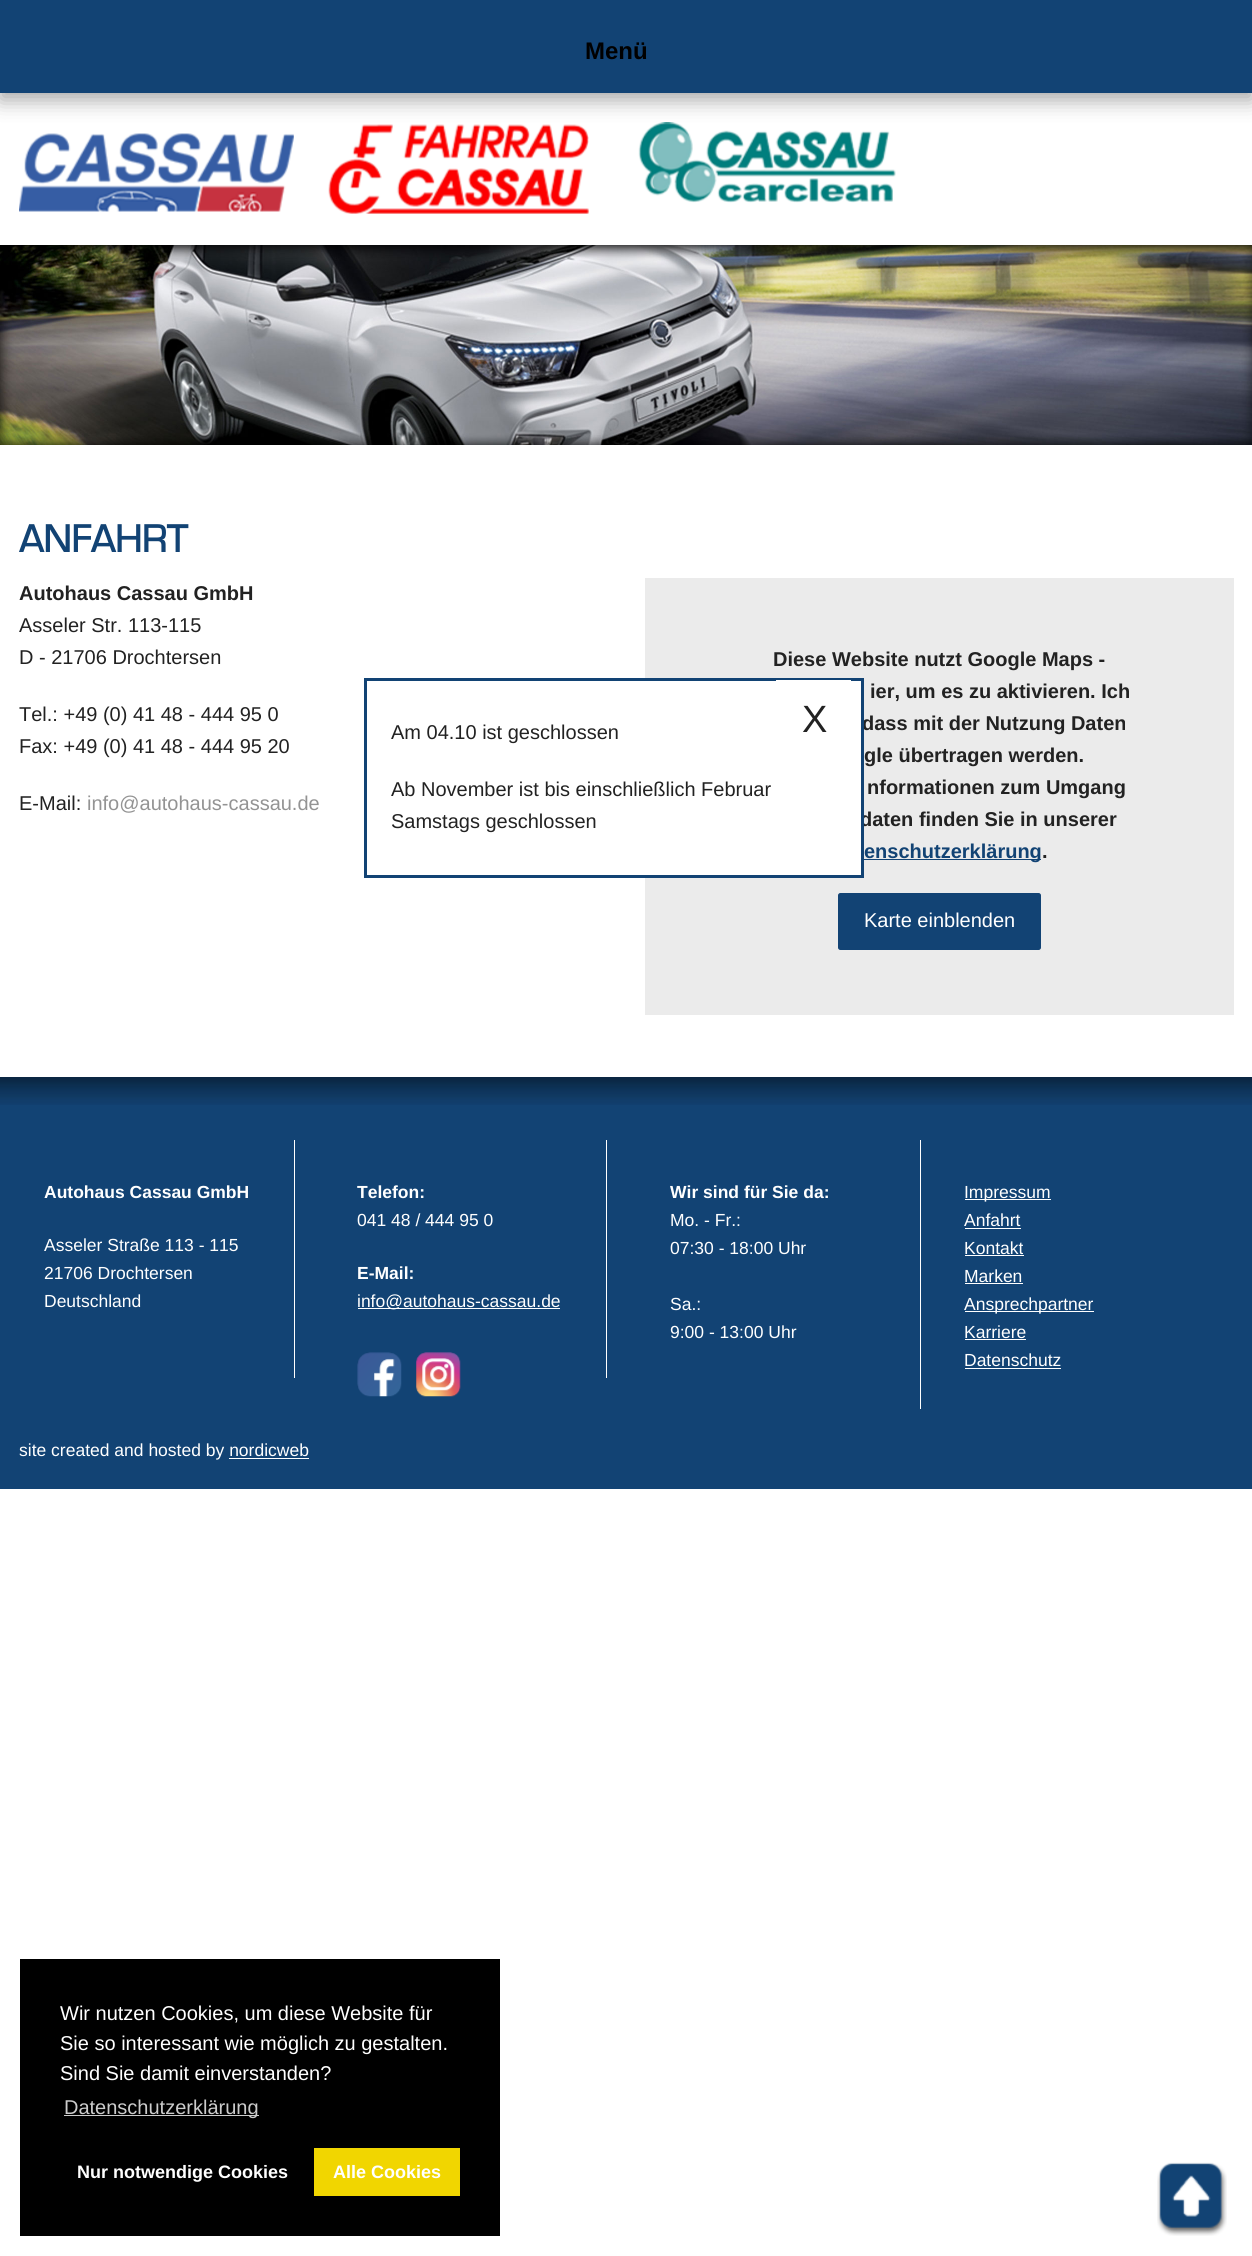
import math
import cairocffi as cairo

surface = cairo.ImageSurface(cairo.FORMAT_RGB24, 1252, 2256)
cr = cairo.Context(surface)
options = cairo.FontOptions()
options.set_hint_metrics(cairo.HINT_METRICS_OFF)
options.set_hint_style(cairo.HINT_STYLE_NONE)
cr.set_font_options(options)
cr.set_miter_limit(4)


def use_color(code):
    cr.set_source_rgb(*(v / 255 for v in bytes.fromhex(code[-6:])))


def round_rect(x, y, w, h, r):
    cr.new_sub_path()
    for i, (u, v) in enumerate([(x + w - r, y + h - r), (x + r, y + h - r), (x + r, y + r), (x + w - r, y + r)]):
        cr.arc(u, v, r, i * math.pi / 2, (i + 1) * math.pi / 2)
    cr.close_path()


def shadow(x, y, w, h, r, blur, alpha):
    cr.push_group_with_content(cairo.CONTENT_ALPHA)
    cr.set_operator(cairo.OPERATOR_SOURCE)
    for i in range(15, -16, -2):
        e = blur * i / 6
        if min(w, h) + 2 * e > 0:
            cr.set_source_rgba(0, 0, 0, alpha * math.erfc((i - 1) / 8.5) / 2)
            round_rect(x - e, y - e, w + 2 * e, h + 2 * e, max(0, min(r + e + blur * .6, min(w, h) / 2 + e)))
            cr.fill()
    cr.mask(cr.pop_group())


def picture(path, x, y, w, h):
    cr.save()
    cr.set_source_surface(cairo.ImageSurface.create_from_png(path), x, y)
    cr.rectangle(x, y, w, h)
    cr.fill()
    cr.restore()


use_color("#ffffff")
cr.paint()
use_color("#000000")
shadow(0, 8, 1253, 92, 0, 10.5, 0.35)
use_color("#124374")
cr.rectangle(0, 0, 1252, 93)
cr.fill()
cr.select_font_face("Liberation Sans", cairo.FONT_SLANT_NORMAL, cairo.FONT_WEIGHT_BOLD)
cr.set_font_size(24)
use_color("#000000")
cr.move_to(585, 59)
cr.show_text("Menü")
picture("img1.png", 19, 133, 275, 79)
picture("img2.png", 328, 124, 261, 90)
picture("img3.png", 638, 122, 258, 81)
picture("img4.png", 0, 245, 1252, 200)
cr.select_font_face("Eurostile", cairo.FONT_SLANT_NORMAL, cairo.FONT_WEIGHT_BOLD)
cr.set_font_size(40)
use_color("#124374")
cr.move_to(19, 552)
cr.show_text("ANFAHRT")
cr.select_font_face("Liberation Sans", cairo.FONT_SLANT_NORMAL, cairo.FONT_WEIGHT_BOLD)
cr.set_font_size(20)
use_color("#222222")
cr.move_to(19, 600)
cr.show_text("Autohaus Cassau GmbH")
cr.select_font_face("Liberation Sans")
cr.move_to(19, 632)
cr.show_text("Asseler Str. 113-115")
cr.move_to(19, 664)
cr.show_text("D - 21706 Drochtersen")
cr.move_to(19, 721)
cr.show_text("Tel.: +49 (0) 41 48 - 444 95 0")
cr.move_to(19, 753)
cr.show_text("Fax: +49 (0) 41 48 - 444 95 20")
cr.move_to(19, 810)
cr.show_text("E-Mail:")
use_color("#939393")
cr.move_to(87, 810)
cr.show_text("info@autohaus-cassau.de")
use_color("#ebebeb")
cr.rectangle(645, 578, 589, 437)
cr.fill()
cr.select_font_face("Liberation Sans", cairo.FONT_SLANT_NORMAL, cairo.FONT_WEIGHT_BOLD)
use_color("#222222")
cr.move_to(773, 666)
cr.show_text("Diese Website nutzt Google Maps -")
cr.move_to(870, 698)
cr.show_text("ier, um es zu aktivieren. Ich")
cr.move_to(862, 730)
cr.show_text("dass mit der Nutzung Daten")
cr.move_to(864, 762)
cr.show_text("gle übertragen werden.")
cr.move_to(867, 794)
cr.show_text("nformationen zum Umgang")
cr.move_to(860, 826)
cr.show_text("daten finden Sie in unserer")
use_color("#124374")
cr.rectangle(864, 859, 177, 1)
cr.fill()
cr.move_to(864, 858)
cr.show_text("enschutzerklärung")
use_color("#222222")
cr.move_to(1042, 858)
cr.show_text(".")
use_color("#124374")
round_rect(838.5, 893.5, 202, 56, 2)
cr.fill_preserve()
cr.set_line_width(1)
cr.stroke()
cr.select_font_face("Liberation Sans")
use_color("#ffffff")
cr.move_to(864, 927)
cr.show_text("Karte einblenden")
use_color("#124374")
cr.rectangle(0, 1105, 1252, 384)
cr.fill()
picture("img5.png", 0, 1077, 1252, 28)
use_color("#ffffff")
cr.rectangle(294, 1140, 1, 238)
cr.fill()
cr.select_font_face("Liberation Sans", cairo.FONT_SLANT_NORMAL, cairo.FONT_WEIGHT_BOLD)
cr.set_font_size(17.5)
cr.move_to(44, 1198)
cr.show_text("Autohaus Cassau GmbH")
cr.select_font_face("Liberation Sans")
cr.move_to(44, 1251)
cr.show_text("Asseler Straße 113 - 115")
cr.move_to(44, 1279)
cr.show_text("21706 Drochtersen")
cr.move_to(44, 1307)
cr.show_text("Deutschland")
cr.rectangle(606, 1140, 1, 238)
cr.fill()
cr.select_font_face("Liberation Sans", cairo.FONT_SLANT_NORMAL, cairo.FONT_WEIGHT_BOLD)
cr.move_to(357, 1198)
cr.show_text("Telefon:")
cr.select_font_face("Liberation Sans")
cr.move_to(357, 1226)
cr.show_text("041 48 / 444 95 0")
cr.select_font_face("Liberation Sans", cairo.FONT_SLANT_NORMAL, cairo.FONT_WEIGHT_BOLD)
cr.move_to(357, 1279)
cr.show_text("E-Mail:")
cr.rectangle(358, 1308, 202, 1)
cr.fill()
cr.select_font_face("Liberation Sans")
cr.move_to(357, 1307)
cr.show_text("info@autohaus-cassau.de")
picture("img6.png", 357, 1352, 45, 45)
picture("img7.png", 416, 1352, 45, 45)
cr.rectangle(920, 1140, 1, 269)
cr.fill()
cr.select_font_face("Liberation Sans", cairo.FONT_SLANT_NORMAL, cairo.FONT_WEIGHT_BOLD)
cr.move_to(670, 1198)
cr.show_text("Wir sind für Sie da:")
cr.select_font_face("Liberation Sans")
cr.move_to(670, 1226)
cr.show_text("Mo. - Fr.:")
cr.move_to(670, 1254)
cr.show_text("07:30 - 18:00 Uhr")
cr.move_to(670, 1310)
cr.show_text("Sa.:")
cr.move_to(670, 1338)
cr.show_text("9:00 - 13:00 Uhr")
cr.rectangle(965, 1199, 86, 1)
cr.fill()
cr.move_to(964, 1198)
cr.show_text("Impressum")
cr.move_to(964, 1226)
cr.show_text("Anfahrt")
cr.rectangle(965, 1228, 56, 1)
cr.fill()
cr.move_to(964, 1254)
cr.show_text("Kontakt")
cr.rectangle(965, 1255, 59, 1)
cr.fill()
cr.move_to(964, 1282)
cr.show_text("Marken")
cr.rectangle(965, 1283, 58, 1)
cr.fill()
cr.rectangle(965, 1311, 129, 1)
cr.fill()
cr.move_to(964, 1310)
cr.show_text("Ansprechpartner")
cr.move_to(964, 1338)
cr.show_text("Karriere")
cr.rectangle(965, 1339, 61, 1)
cr.fill()
cr.move_to(964, 1366)
cr.show_text("Datenschutz")
cr.rectangle(965, 1368, 96, 1)
cr.fill()
cr.move_to(19, 1456)
cr.show_text("site created and hosted by nordicweb")
cr.rectangle(229, 1458, 80, 1)
cr.fill()
picture("img8.png", 1157, 2162, 70, 74)
cr.rectangle(645, 681, 216, 194)
cr.fill()
cr.rectangle(365.5, 679.5, 497, 197)
use_color("#124374")
cr.set_line_width(3)
cr.stroke()
use_color("#ffffff")
cr.rectangle(776, 680, 75, 1)
cr.fill()
cr.set_font_size(38)
use_color("#222222")
cr.move_to(802, 732)
cr.show_text("X")
cr.set_font_size(20)
cr.move_to(391, 739)
cr.show_text("Am 04.10 ist geschlossen")
cr.move_to(391, 796)
cr.show_text("Ab November ist bis einschließlich Februar")
cr.move_to(391, 828)
cr.show_text("Samstags geschlossen")
use_color("#000000")
cr.rectangle(20, 1959, 480, 277)
cr.fill()
use_color("#ffffff")
cr.move_to(60, 2020)
cr.show_text("Wir nutzen Cookies, um diese Website für")
cr.move_to(60, 2050)
cr.show_text("Sie so interessant wie möglich zu gestalten.")
cr.move_to(60, 2080)
cr.show_text("Sind Sie damit einverstanden?")
use_color("#cccccc")
cr.rectangle(64, 2115, 195, 1)
cr.fill()
cr.move_to(64, 2114)
cr.show_text("Datenschutzerklärung")
cr.select_font_face("Liberation Sans", cairo.FONT_SLANT_NORMAL, cairo.FONT_WEIGHT_BOLD)
cr.set_font_size(18)
use_color("#ffffff")
cr.move_to(77, 2178)
cr.show_text("Nur notwendige Cookies")
use_color("#f1d600")
cr.rectangle(314, 2148, 146, 48)
cr.fill()
use_color("#ffffff")
cr.move_to(333, 2178)
cr.show_text("Alle Cookies")
surface.write_to_png("result.png")
